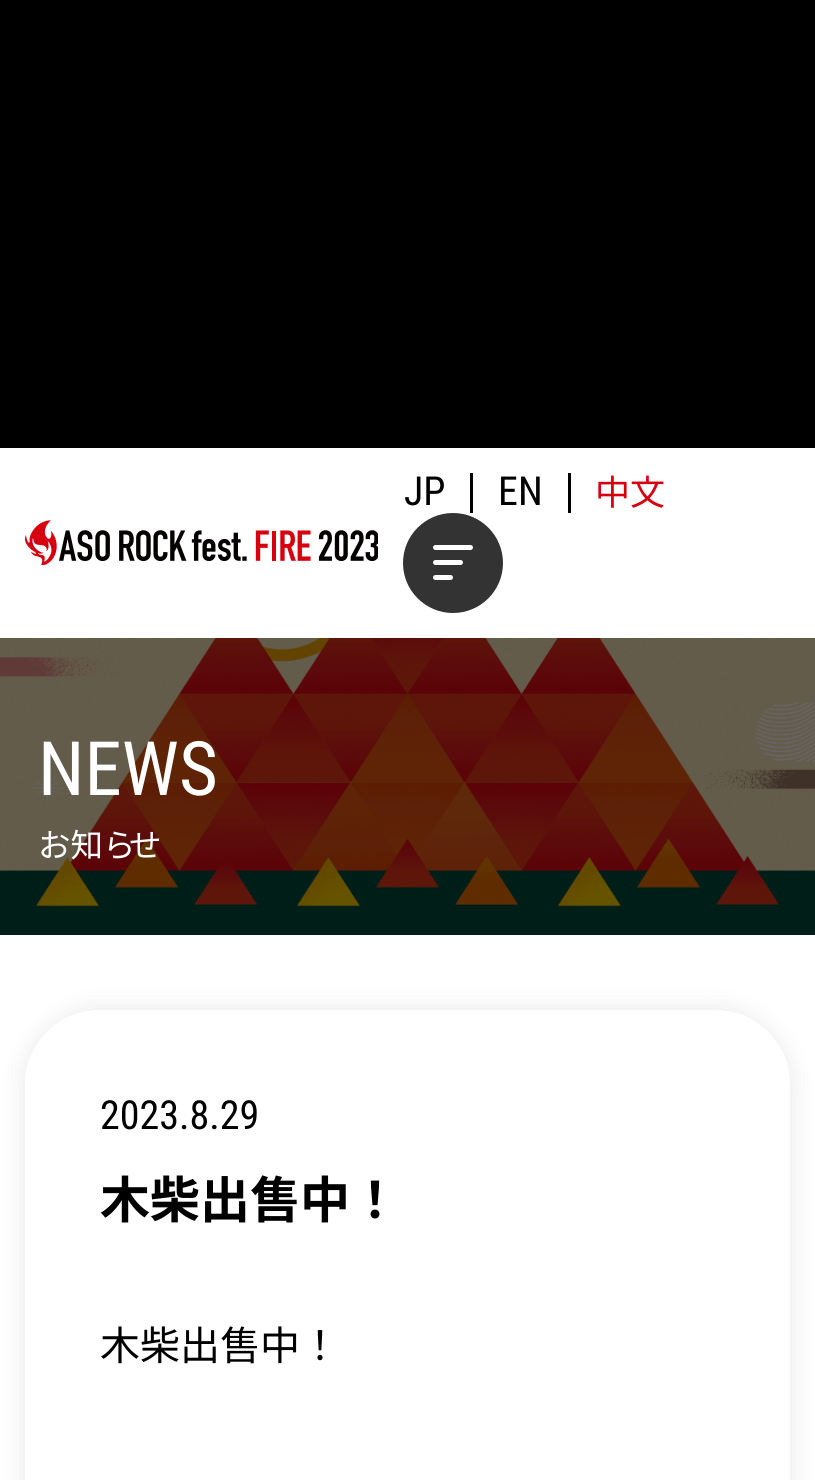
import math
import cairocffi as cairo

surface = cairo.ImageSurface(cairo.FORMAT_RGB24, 815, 1480)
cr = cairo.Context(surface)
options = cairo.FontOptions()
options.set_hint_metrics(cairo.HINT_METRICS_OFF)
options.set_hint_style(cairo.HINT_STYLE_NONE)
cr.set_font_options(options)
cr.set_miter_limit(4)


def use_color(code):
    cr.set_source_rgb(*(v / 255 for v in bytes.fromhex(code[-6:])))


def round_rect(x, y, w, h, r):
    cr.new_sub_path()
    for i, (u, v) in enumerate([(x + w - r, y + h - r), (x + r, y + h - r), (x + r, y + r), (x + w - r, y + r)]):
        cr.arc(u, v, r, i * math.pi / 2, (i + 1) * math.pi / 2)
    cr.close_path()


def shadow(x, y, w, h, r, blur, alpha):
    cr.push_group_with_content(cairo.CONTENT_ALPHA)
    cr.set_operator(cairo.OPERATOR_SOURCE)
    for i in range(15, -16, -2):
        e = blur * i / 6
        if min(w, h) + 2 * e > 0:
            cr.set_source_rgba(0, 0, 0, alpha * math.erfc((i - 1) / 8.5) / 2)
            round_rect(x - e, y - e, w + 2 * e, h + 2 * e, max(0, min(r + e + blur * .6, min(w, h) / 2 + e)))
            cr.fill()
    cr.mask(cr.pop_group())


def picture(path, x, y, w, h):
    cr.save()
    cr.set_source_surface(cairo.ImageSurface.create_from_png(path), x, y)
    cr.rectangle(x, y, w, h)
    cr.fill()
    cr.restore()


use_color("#000000")
cr.paint()
use_color("#ffffff")
cr.rectangle(0, 448, 815, 190)
cr.fill()
use_color("#000000")
cr.rectangle(470, 473, 3, 40)
cr.fill()
cr.select_font_face("Roboto Condensed")
cr.set_font_size(40)
cr.move_to(404, 505)
cr.show_text("JP")
cr.rectangle(568, 473, 3, 40)
cr.fill()
cr.move_to(498, 505)
cr.show_text("EN")
cr.select_font_face("Noto Sans JP")
cr.set_font_size(35)
use_color("#d7000f")
cr.move_to(595, 505)
cr.show_text("中文")
use_color("#333333")
cr.new_path()
cr.arc(453, 563, 50, 0, 2 * math.pi)
cr.fill()
use_color("#ffffff")
round_rect(433, 545, 40, 5, 2.5)
cr.fill()
round_rect(433, 560, 30, 5, 2.5)
cr.fill()
round_rect(433, 575, 20, 5, 2.5)
cr.fill()
picture("img1.png", 25, 520, 353, 45)
picture("img2.png", 0, 638, 815, 297)
cr.select_font_face("Roboto Condensed")
cr.set_font_size(75)
cr.move_to(38, 795)
cr.show_text("NEWS")
cr.select_font_face("Noto Sans JP")
cr.set_font_size(32.5)
cr.move_to(38, 857)
cr.show_text("お知ら")
cr.move_to(129, 857)
cr.show_text("せ")
cr.rectangle(0, 935, 815, 545)
cr.fill()
cr.save()
cr.set_fill_rule(cairo.FILL_RULE_EVEN_ODD)
cr.new_path()
cr.move_to(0, 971)
cr.line_to(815, 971)
cr.line_to(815, 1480)
cr.line_to(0, 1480)
cr.close_path()
cr.move_to(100, 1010)
cr.line_to(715, 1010)
cr.curve_to(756.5, 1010, 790, 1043.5, 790, 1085)
cr.line_to(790, 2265)
cr.curve_to(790, 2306.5, 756.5, 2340, 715, 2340)
cr.line_to(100, 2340)
cr.curve_to(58.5, 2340, 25, 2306.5, 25, 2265)
cr.line_to(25, 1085)
cr.curve_to(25, 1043.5, 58.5, 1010, 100, 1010)
cr.close_path()
cr.clip()
use_color("#000000")
shadow(25, 1010, 765, 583, 75, 12.5, 0.1)
cr.restore()
cr.select_font_face("Roboto Condensed")
cr.set_font_size(40)
use_color("#000000")
cr.move_to(100, 1129)
cr.show_text("2023.8.29")
cr.select_font_face("Noto Sans JP", cairo.FONT_SLANT_NORMAL, cairo.FONT_WEIGHT_BOLD)
cr.set_font_size(50)
cr.move_to(100, 1218)
cr.show_text("木柴出售中！")
cr.select_font_face("Noto Sans JP")
cr.set_font_size(40)
cr.move_to(100, 1360)
cr.show_text("木柴出售中！")
surface.write_to_png("result.png")
